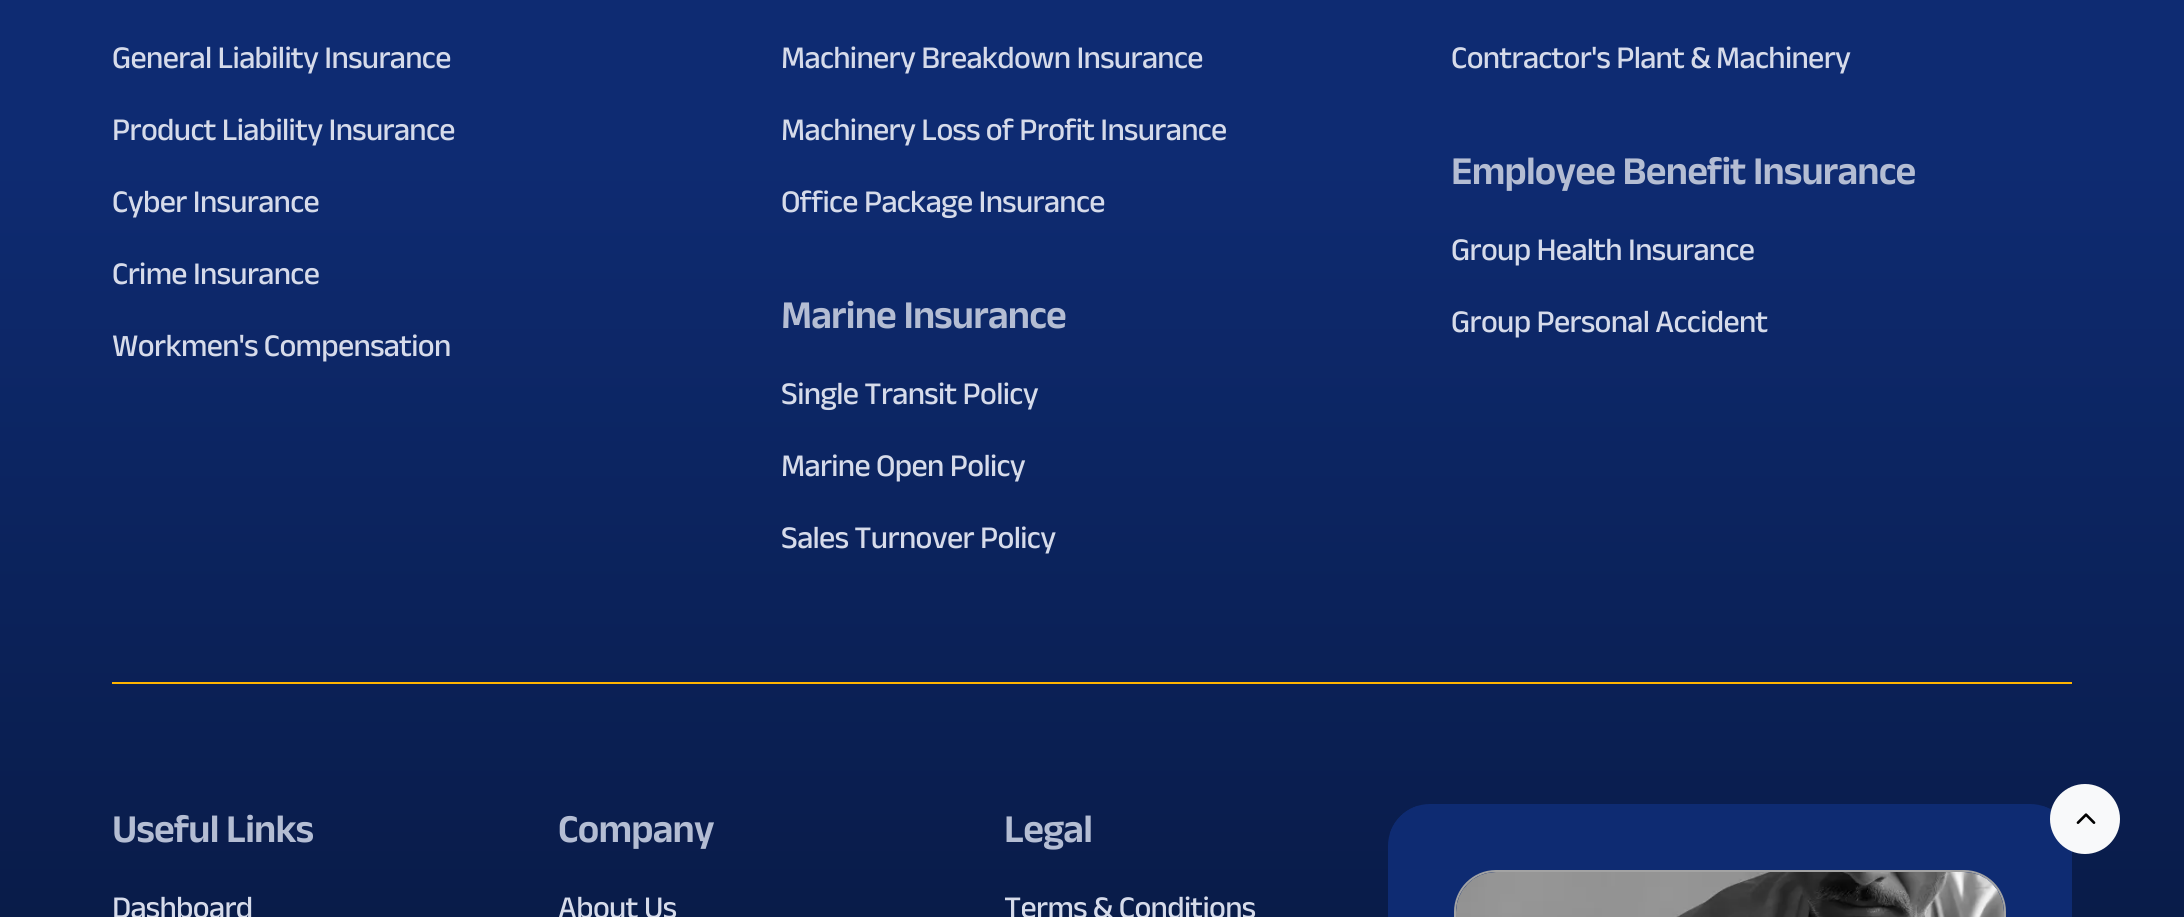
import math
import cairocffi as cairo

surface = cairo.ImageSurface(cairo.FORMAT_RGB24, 2184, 917)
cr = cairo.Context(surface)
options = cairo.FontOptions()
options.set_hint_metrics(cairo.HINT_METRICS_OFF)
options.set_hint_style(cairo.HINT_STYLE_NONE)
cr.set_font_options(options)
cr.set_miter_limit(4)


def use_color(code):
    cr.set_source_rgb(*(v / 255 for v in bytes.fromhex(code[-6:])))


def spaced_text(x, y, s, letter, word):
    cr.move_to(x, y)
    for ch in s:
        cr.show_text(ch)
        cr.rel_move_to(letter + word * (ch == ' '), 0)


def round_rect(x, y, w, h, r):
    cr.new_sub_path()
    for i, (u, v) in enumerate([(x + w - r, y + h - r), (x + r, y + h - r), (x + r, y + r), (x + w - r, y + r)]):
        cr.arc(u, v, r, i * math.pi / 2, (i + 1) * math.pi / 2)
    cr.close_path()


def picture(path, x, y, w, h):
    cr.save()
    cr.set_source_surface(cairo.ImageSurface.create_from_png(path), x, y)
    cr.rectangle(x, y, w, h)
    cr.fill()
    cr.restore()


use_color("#ffffff")
cr.paint()
gradient = cairo.LinearGradient(1092, -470, 1092, 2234)
gradient.add_color_stop_rgba(0.23, 0.055, 0.169, 0.447, 1)
gradient.add_color_stop_rgba(0.74, 0.02, 0.059, 0.157, 1)
cr.set_source(gradient)
cr.rectangle(0, 0, 2184, 917)
cr.fill()
cr.select_font_face("Anek Latin Medium")
cr.set_font_size(32)
use_color("#d6dbea")
spaced_text(112, 68, "General Liability Insurance", -0.65, 0)
spaced_text(112, 140, "Product Liability Insurance", -0.65, 0)
spaced_text(112, 212, "Cyber Insurance", -0.65, 0)
spaced_text(112, 284, "Crime Insurance", -0.65, 0)
spaced_text(112, 356, "Workmen's Compensation", -0.65, 0)
spaced_text(781, 68, "Machinery Breakdown Insurance", -0.65, 0)
spaced_text(781, 140, "Machinery Loss of Profit Insurance", -0.65, 0)
spaced_text(781, 212, "Office Package Insurance", -0.65, 0)
cr.select_font_face("Anek Latin SemiBold")
cr.set_font_size(40)
use_color("#b4bdd3")
spaced_text(781, 328, "Marine Insurance", -0.8, 0)
cr.select_font_face("Anek Latin Medium")
cr.set_font_size(32)
use_color("#d6dbea")
spaced_text(781, 404, "Single Transit Policy", -0.65, 0)
spaced_text(781, 476, "Marine Open Policy", -0.65, 0)
spaced_text(781, 548, "Sales Turnover Policy", -0.65, 0)
spaced_text(1451, 68, "Contractor's Plant & Machinery", -0.65, 0)
cr.select_font_face("Anek Latin SemiBold")
cr.set_font_size(40)
use_color("#b4bdd3")
spaced_text(1451, 184, "Employee Benefit Insurance", -0.8, 0)
cr.select_font_face("Anek Latin Medium")
cr.set_font_size(32)
use_color("#d6dbea")
spaced_text(1451, 260, "Group Health Insurance", -0.65, 0)
spaced_text(1451, 332, "Group Personal Accident", -0.65, 0)
use_color("#ffb400")
cr.rectangle(112, 682, 1960, 2)
cr.fill()
cr.select_font_face("Anek Latin SemiBold")
cr.set_font_size(40)
use_color("#b4bdd3")
spaced_text(112, 842, "Useful Links", -0.8, 0)
cr.select_font_face("Anek Latin Medium")
cr.set_font_size(32)
use_color("#d6dbea")
spaced_text(112, 918, "Dashboard", -0.65, 0)
cr.select_font_face("Anek Latin SemiBold")
cr.set_font_size(40)
use_color("#b4bdd3")
spaced_text(558, 842, "Company", -0.8, 0)
cr.select_font_face("Anek Latin Medium")
cr.set_font_size(32)
use_color("#d6dbea")
spaced_text(558, 918, "About Us", -0.65, 0)
cr.select_font_face("Anek Latin SemiBold")
cr.set_font_size(40)
use_color("#b4bdd3")
spaced_text(1004, 842, "Legal", -0.8, 0)
cr.select_font_face("Anek Latin Medium")
cr.set_font_size(32)
use_color("#d6dbea")
spaced_text(1004, 918, "Terms & Conditions", -0.65, 0)
cr.save()
round_rect(1388, 804, 684, 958, 42)
cr.clip()
gradient = cairo.LinearGradient(1557, 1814, 1903, 752)
gradient.add_color_stop_rgba(0.37, 0.02, 0.059, 0.157, 1)
gradient.add_color_stop_rgba(0.62, 0.055, 0.169, 0.447, 1)
cr.set_source(gradient)
cr.rectangle(1390, 806, 680, 111)
cr.fill()
cr.restore()
round_rect(1389, 805, 682, 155, 41)
use_color("#0e2b72")
cr.stroke()
round_rect(1455, 871, 550, 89, 41)
use_color("#a3a3a3")
cr.stroke()
picture("img1.png", 1456, 872, 548, 45)
use_color("#f8f9fa")
cr.arc(2085, 819, 35, 0, 2 * math.pi)
cr.fill()
picture("img2.png", 2076, 813, 20, 11)
surface.write_to_png("result.png")
